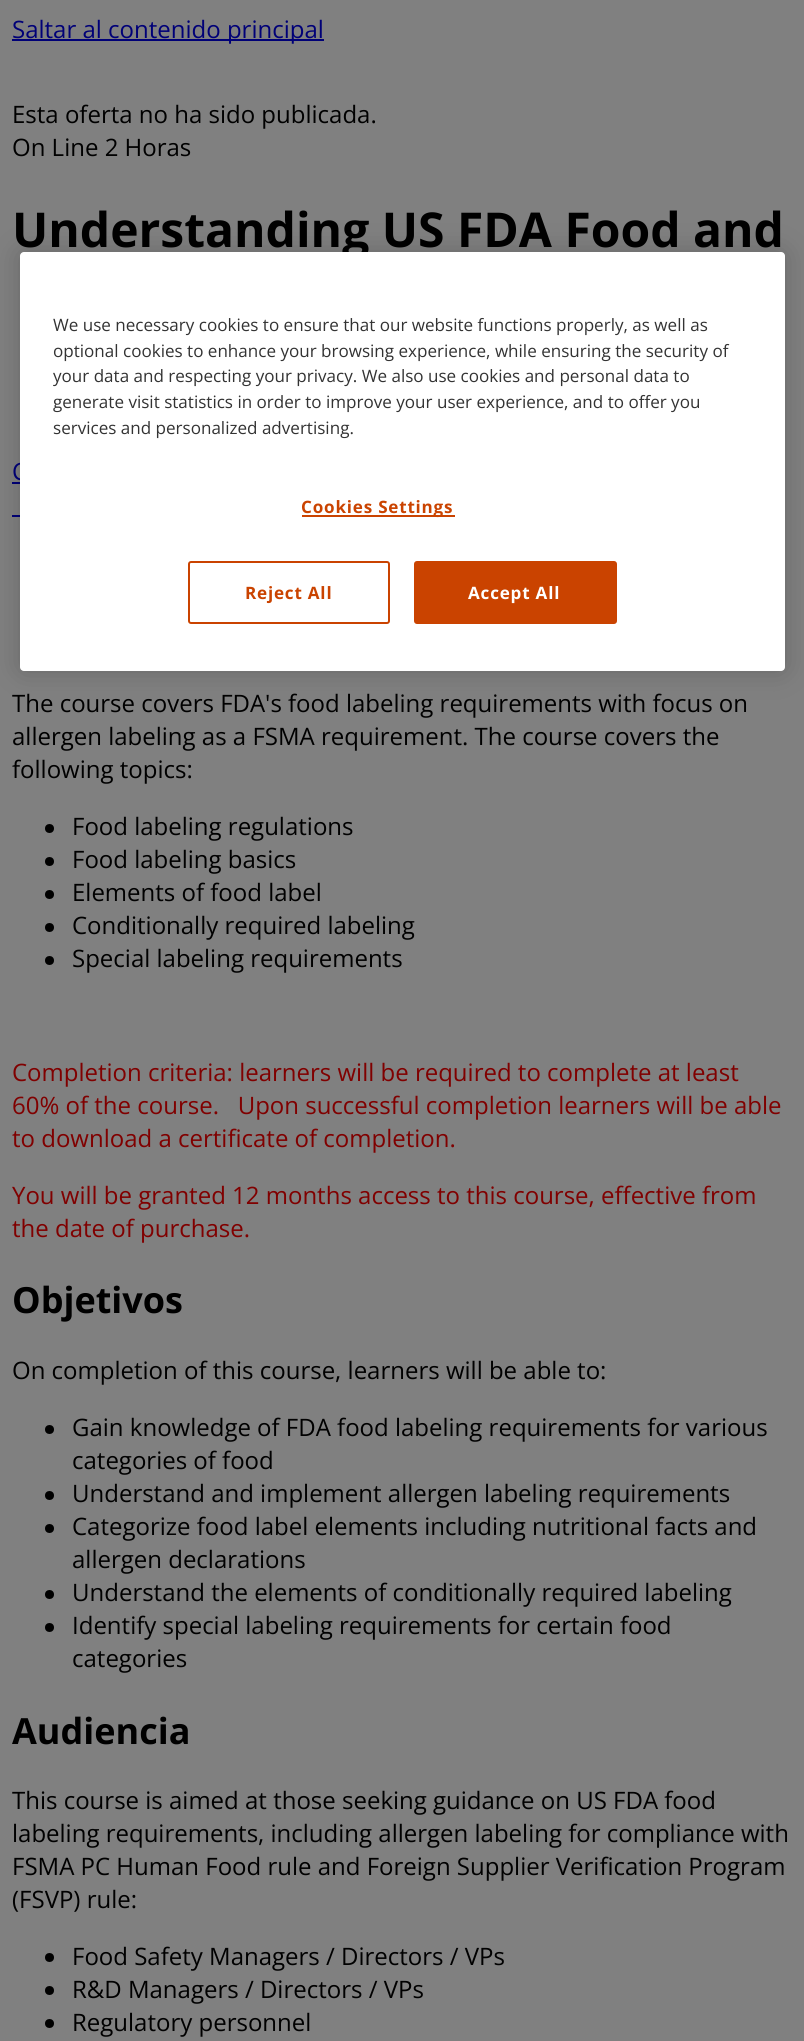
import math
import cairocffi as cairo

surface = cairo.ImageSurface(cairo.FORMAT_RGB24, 804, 2041)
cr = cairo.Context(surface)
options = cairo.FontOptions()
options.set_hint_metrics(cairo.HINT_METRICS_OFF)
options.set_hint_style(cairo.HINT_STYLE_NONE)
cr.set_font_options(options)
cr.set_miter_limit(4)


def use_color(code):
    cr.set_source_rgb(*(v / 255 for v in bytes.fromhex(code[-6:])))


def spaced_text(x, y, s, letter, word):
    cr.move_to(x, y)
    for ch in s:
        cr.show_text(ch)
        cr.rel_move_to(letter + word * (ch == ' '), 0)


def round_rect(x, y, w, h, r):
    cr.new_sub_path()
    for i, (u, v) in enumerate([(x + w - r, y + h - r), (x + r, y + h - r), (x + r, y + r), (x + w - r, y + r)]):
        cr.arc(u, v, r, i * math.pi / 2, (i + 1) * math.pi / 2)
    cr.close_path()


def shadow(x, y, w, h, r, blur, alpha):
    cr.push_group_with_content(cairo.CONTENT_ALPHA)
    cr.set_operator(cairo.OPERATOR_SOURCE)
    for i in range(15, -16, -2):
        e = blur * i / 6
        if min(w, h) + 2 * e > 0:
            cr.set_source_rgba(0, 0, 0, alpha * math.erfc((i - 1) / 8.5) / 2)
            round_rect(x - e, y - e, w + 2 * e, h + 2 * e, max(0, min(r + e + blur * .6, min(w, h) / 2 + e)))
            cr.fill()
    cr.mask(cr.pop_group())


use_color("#808080")
cr.paint()
use_color("#000077")
cr.rectangle(12, 39, 312, 2)
cr.fill()
cr.select_font_face("Open Sans")
cr.set_font_size(24)
cr.move_to(12, 38)
cr.show_text("Saltar al contenido principal")
use_color("#000000")
cr.move_to(12, 123)
cr.show_text("Esta oferta no ha sido publicada.")
cr.move_to(12, 156)
cr.show_text("On Line 2 Horas")
cr.select_font_face("Open Sans", cairo.FONT_SLANT_NORMAL, cairo.FONT_WEIGHT_BOLD)
cr.set_font_size(48)
cr.move_to(12, 247)
cr.show_text("Understanding US FDA Food and")
cr.select_font_face("Open Sans")
cr.set_font_size(24)
use_color("#000077")
cr.move_to(12, 480)
cr.show_text("C")
cr.rectangle(12, 482, 8, 2)
cr.fill()
cr.rectangle(12, 515, 8, 2)
cr.fill()
use_color("#000000")
cr.move_to(12, 712)
cr.show_text("The course covers FDA's food labeling requirements with focus on")
cr.move_to(12, 745)
cr.show_text("allergen labeling as a FSMA requirement. The course covers the")
cr.move_to(12, 778)
cr.show_text("following topics:")
cr.new_path()
cr.arc(49.5, 828.5, 4.5, 0, 2 * math.pi)
cr.fill()
cr.move_to(72, 835)
cr.show_text("Food labeling regulations")
cr.new_path()
cr.arc(49.5, 861.5, 4.5, 0, 2 * math.pi)
cr.fill()
cr.move_to(72, 868)
cr.show_text("Food labeling basics")
cr.new_path()
cr.arc(49.5, 894.5, 4.5, 0, 2 * math.pi)
cr.fill()
cr.move_to(72, 901)
cr.show_text("Elements of food label")
cr.new_path()
cr.arc(49.5, 927.5, 4.5, 0, 2 * math.pi)
cr.fill()
cr.move_to(72, 934)
cr.show_text("Conditionally required labeling")
cr.new_path()
cr.arc(49.5, 960.5, 4.5, 0, 2 * math.pi)
cr.fill()
cr.move_to(72, 967)
cr.show_text("Special labeling requirements")
use_color("#800000")
cr.move_to(12, 1081)
cr.show_text("Completion criteria: learners will be required to complete at least")
cr.move_to(12, 1114)
cr.show_text("60% of the course.   Upon successful completion learners will be able")
cr.move_to(12, 1147)
cr.show_text("to download a certificate of completion.")
cr.move_to(12, 1204)
cr.show_text("You will be granted 12 months access to this course, effective from")
cr.move_to(12, 1237)
cr.show_text("the date of purchase.")
cr.select_font_face("Open Sans", cairo.FONT_SLANT_NORMAL, cairo.FONT_WEIGHT_BOLD)
cr.set_font_size(36)
use_color("#000000")
cr.move_to(12, 1313)
cr.show_text("Objetivos")
cr.select_font_face("Open Sans")
cr.set_font_size(24)
cr.move_to(12, 1379)
cr.show_text("On completion of this course, learners will be able to:")
cr.new_path()
cr.arc(49.5, 1429.5, 4.5, 0, 2 * math.pi)
cr.fill()
cr.move_to(72, 1436)
cr.show_text("Gain knowledge of FDA food labeling requirements for various")
cr.move_to(72, 1469)
cr.show_text("categories of food")
cr.new_path()
cr.arc(49.5, 1495.5, 4.5, 0, 2 * math.pi)
cr.fill()
cr.move_to(72, 1502)
cr.show_text("Understand and implement allergen labeling requirements")
cr.new_path()
cr.arc(49.5, 1528.5, 4.5, 0, 2 * math.pi)
cr.fill()
cr.move_to(72, 1535)
cr.show_text("Categorize food label elements including nutritional facts and")
cr.move_to(72, 1568)
cr.show_text("allergen declarations")
cr.new_path()
cr.arc(49.5, 1594.5, 4.5, 0, 2 * math.pi)
cr.fill()
cr.move_to(72, 1601)
cr.show_text("Understand the elements of conditionally required labeling")
cr.new_path()
cr.arc(49.5, 1627.5, 4.5, 0, 2 * math.pi)
cr.fill()
cr.move_to(72, 1634)
cr.show_text("Identify special labeling requirements for certain food")
cr.move_to(72, 1667)
cr.show_text("categories")
cr.select_font_face("Open Sans", cairo.FONT_SLANT_NORMAL, cairo.FONT_WEIGHT_BOLD)
cr.set_font_size(36)
cr.move_to(12, 1744)
cr.show_text("Audiencia")
cr.select_font_face("Open Sans")
cr.set_font_size(24)
cr.move_to(12, 1809)
cr.show_text("This course is aimed at those seeking guidance on US FDA food")
cr.move_to(12, 1842)
cr.show_text("labeling requirements, including allergen labeling for compliance with")
cr.move_to(12, 1875)
cr.show_text("FSMA PC Human Food rule and Foreign Supplier Verification Program")
cr.move_to(12, 1908)
cr.show_text("(FSVP) rule:")
cr.new_path()
cr.arc(49.5, 1957.5, 4.5, 0, 2 * math.pi)
cr.fill()
cr.move_to(72, 1965)
cr.show_text("Food Safety Managers / Directors / VPs")
cr.new_path()
cr.arc(49.5, 1990.5, 4.5, 0, 2 * math.pi)
cr.fill()
cr.move_to(72, 1998)
cr.show_text("R&D Managers / Directors / VPs")
cr.new_path()
cr.arc(49.5, 2023.5, 4.5, 0, 2 * math.pi)
cr.fill()
cr.move_to(72, 2031)
cr.show_text("Regulatory personnel")
use_color("#000000")
shadow(20, 252, 765, 419, 4, 13.5, 0.2)
use_color("#ffffff")
round_rect(20, 252, 765, 419, 4)
cr.fill()
cr.set_font_size(17.05)
use_color("#333333")
cr.move_to(53, 331)
cr.show_text("We use necessary cookies to ensure that our website functions properly, as well as")
cr.move_to(53, 357)
cr.show_text("optional cookies to enhance your browsing experience, while ensuring the security of")
cr.move_to(53, 382)
cr.show_text("your data and respecting your privacy. We also use cookies and personal data to")
cr.move_to(53, 408)
cr.show_text("generate visit statistics in order to improve your user experience, and to offer you")
cr.move_to(53, 434)
cr.show_text("services and personalized advertising.")
use_color("#ca4300")
cr.rectangle(302, 515, 153, 2)
cr.fill()
cr.select_font_face("Open Sans", cairo.FONT_SLANT_NORMAL, cairo.FONT_WEIGHT_BOLD)
spaced_text(301, 513, "Cookies Settings", 0.8, 0)
round_rect(189, 562, 200, 61, 2)
cr.stroke()
spaced_text(245, 599, "Reject All", 0.8, 0)
round_rect(415, 562, 201, 61, 2)
cr.fill_preserve()
cr.stroke()
use_color("#ffffff")
spaced_text(468, 599, "Accept All", 0.8, 0)
surface.write_to_png("result.png")
